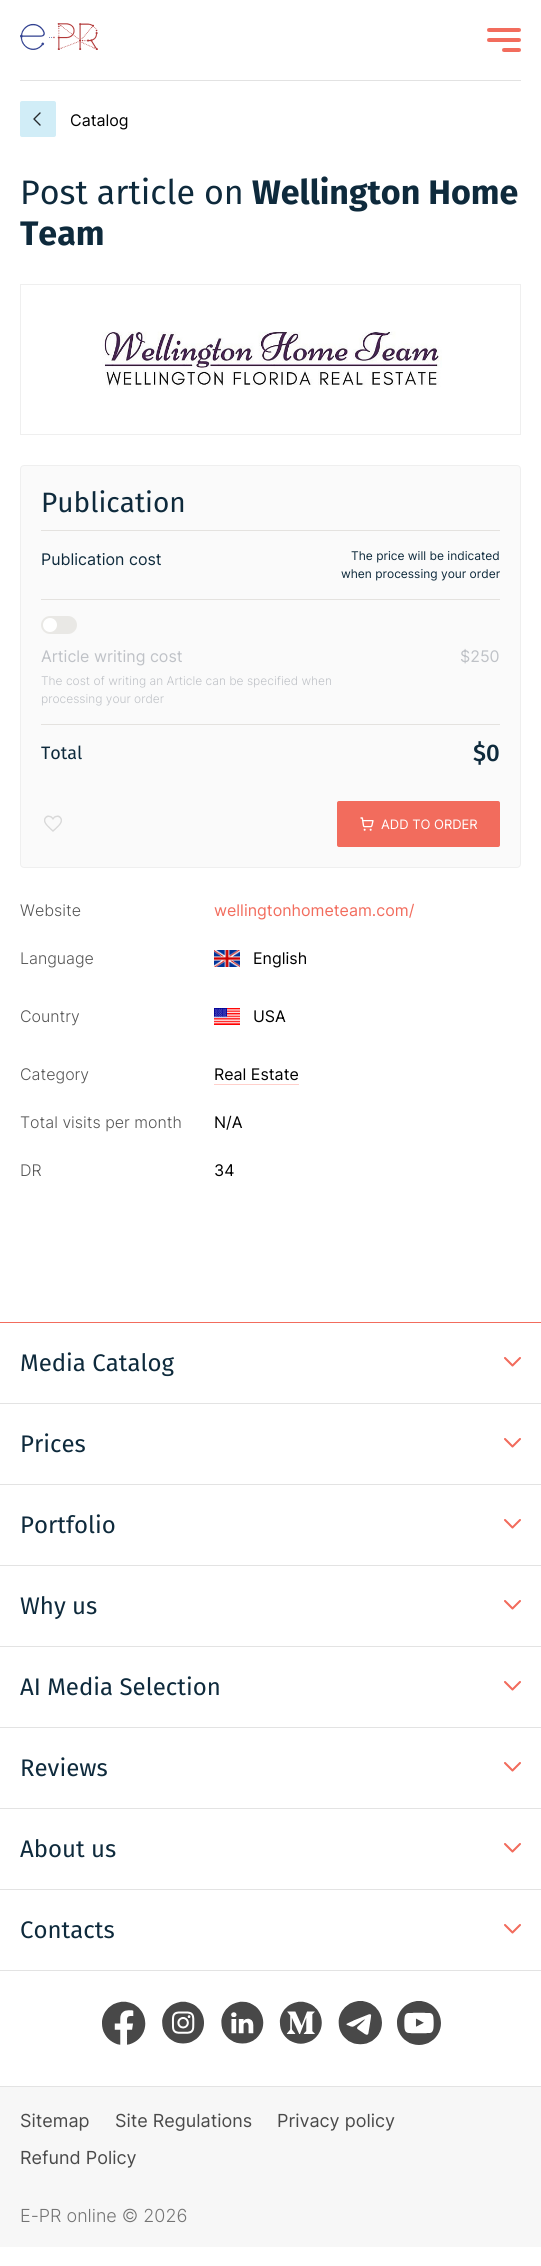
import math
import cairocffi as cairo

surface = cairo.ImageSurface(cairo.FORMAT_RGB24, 541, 2266)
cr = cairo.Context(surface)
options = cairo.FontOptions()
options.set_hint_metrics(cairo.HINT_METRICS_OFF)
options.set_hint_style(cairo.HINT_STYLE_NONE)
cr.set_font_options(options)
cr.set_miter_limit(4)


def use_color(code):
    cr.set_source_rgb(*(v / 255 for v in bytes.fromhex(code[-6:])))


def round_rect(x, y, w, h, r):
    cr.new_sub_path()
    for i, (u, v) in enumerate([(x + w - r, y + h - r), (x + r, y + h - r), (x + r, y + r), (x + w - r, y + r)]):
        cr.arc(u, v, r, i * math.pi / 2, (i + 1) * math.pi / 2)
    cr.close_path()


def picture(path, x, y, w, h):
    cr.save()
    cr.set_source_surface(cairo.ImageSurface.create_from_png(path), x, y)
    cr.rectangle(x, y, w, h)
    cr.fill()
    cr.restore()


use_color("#ffffff")
cr.paint()
use_color("#e2e2e2")
cr.rectangle(20, 80, 501, 1)
cr.fill()
picture("img1.png", 20, 23, 78, 27)
picture("img2.png", 487, 28, 34, 24)
use_color("#d1edf7")
round_rect(20, 101, 36, 36, 2)
cr.fill()
picture("img3.png", 33, 112, 8, 14)
cr.select_font_face("Inter")
cr.set_font_size(16)
use_color("#000000")
cr.move_to(70, 126)
cr.show_text("Catalog")
cr.select_font_face("Fira Sans")
cr.set_font_size(34)
use_color("#0e2a3c")
cr.move_to(20, 204)
cr.show_text("Post article on")
cr.select_font_face("Fira Sans", cairo.FONT_SLANT_NORMAL, cairo.FONT_WEIGHT_BOLD)
cr.move_to(252, 204)
cr.show_text("Wellington Home")
cr.move_to(20, 245)
cr.show_text("Team")
cr.rectangle(20.5, 284.5, 500, 150)
use_color("#efefef")
cr.set_line_width(1)
cr.stroke()
picture("img4.png", 102, 331, 340, 57)
use_color("#fafafa")
round_rect(20.5, 465.5, 500, 402, 3.5)
cr.fill_preserve()
use_color("#efefef")
cr.stroke()
cr.select_font_face("Fira Sans")
cr.set_font_size(28)
use_color("#0e2a3c")
cr.move_to(41, 512)
cr.show_text("Publication")
use_color("#e4e2df")
cr.rectangle(41, 530, 459, 1)
cr.fill()
cr.rectangle(41, 599, 459, 1)
cr.fill()
cr.select_font_face("Inter")
cr.set_font_size(16)
use_color("#0e2a3c")
cr.move_to(41, 565)
cr.show_text("Publication cost")
cr.set_font_size(12)
cr.move_to(351, 560)
cr.show_text("The price will be indicated")
cr.move_to(341, 578)
cr.show_text("when processing your order")
use_color("#e4e2df")
cr.rectangle(41, 724, 459, 1)
cr.fill()
use_color("#e9e8e5")
round_rect(41, 616, 36, 18, 9)
cr.fill()
use_color("#ffffff")
cr.arc(50, 625, 7, 0, 2 * math.pi)
cr.fill()
cr.set_font_size(16)
use_color("#bfc2c7")
cr.move_to(41, 662)
cr.show_text("Article writing cost")
cr.select_font_face("Inter Light")
cr.set_font_size(12)
cr.move_to(41, 685)
cr.show_text("The cost of writing an Article can be specified when")
cr.move_to(41, 703)
cr.show_text("processing your order")
cr.select_font_face("Inter")
cr.set_font_size(16)
cr.move_to(460, 662)
cr.show_text("$250")
cr.select_font_face("Fira Sans")
cr.set_font_size(18)
use_color("#0e2a3c")
cr.move_to(41, 759)
cr.show_text("Total")
cr.select_font_face("Fira Sans Medium")
cr.set_font_size(24)
cr.move_to(473, 761)
cr.show_text("$0")
picture("img5.png", 44, 815, 18, 17)
use_color("#f26c5d")
round_rect(337, 801, 163, 46, 2)
cr.fill()
picture("img6.png", 360, 817, 14, 14)
cr.select_font_face("Inter")
cr.set_font_size(13)
use_color("#ffffff")
cr.move_to(381, 829)
cr.show_text("ADD TO ORDER")
cr.select_font_face("Inter Light")
cr.set_font_size(16)
use_color("#555555")
cr.move_to(20, 916)
cr.show_text("Website")
cr.select_font_face("Inter")
use_color("#f26c5d")
cr.move_to(214, 916)
cr.show_text("wellingtonhometeam.com/")
cr.select_font_face("Inter Light")
use_color("#555555")
cr.move_to(20, 964)
cr.show_text("Language")
picture("img7.png", 214, 950, 26, 17)
cr.select_font_face("Inter")
use_color("#000000")
cr.move_to(253, 964)
cr.show_text("English")
cr.select_font_face("Inter Light")
use_color("#555555")
cr.move_to(20, 1022)
cr.show_text("Country")
picture("img8.png", 214, 1008, 26, 17)
cr.select_font_face("Inter")
use_color("#000000")
cr.move_to(253, 1022)
cr.show_text("USA")
cr.select_font_face("Inter Light")
use_color("#555555")
cr.move_to(20, 1080)
cr.show_text("Category")
cr.select_font_face("Inter")
use_color("#000000")
cr.move_to(214, 1080)
cr.show_text("Real Estate")
use_color("#ffd0cb")
cr.rectangle(214, 1084, 85, 1)
cr.fill()
cr.select_font_face("Inter Light")
use_color("#555555")
cr.move_to(20, 1128)
cr.show_text("Total visits per month")
cr.select_font_face("Inter")
use_color("#000000")
cr.move_to(214, 1128)
cr.show_text("N/A")
cr.select_font_face("Inter Light")
use_color("#555555")
cr.move_to(20, 1176)
cr.show_text("DR")
cr.select_font_face("Inter")
use_color("#000000")
cr.move_to(214, 1176)
cr.show_text("34")
use_color("#f26c5d")
cr.rectangle(0, 1322, 541, 1)
cr.fill()
cr.select_font_face("Fira Sans")
cr.set_font_size(24)
use_color("#0e2a3c")
cr.move_to(20, 1371)
cr.show_text("Media Catalog")
picture("img9.png", 504, 1357, 17, 10)
use_color("#e3e3e3")
cr.rectangle(0, 1403, 541, 1)
cr.fill()
use_color("#0e2a3c")
cr.move_to(20, 1452)
cr.show_text("Prices")
picture("img9.png", 504, 1438, 17, 10)
use_color("#e3e3e3")
cr.rectangle(0, 1484, 541, 1)
cr.fill()
use_color("#0e2a3c")
cr.move_to(20, 1533)
cr.show_text("Portfolio")
picture("img10.png", 504, 1519, 17, 10)
use_color("#e3e3e3")
cr.rectangle(0, 1565, 541, 1)
cr.fill()
use_color("#0e2a3c")
cr.move_to(20, 1614)
cr.show_text("Why us")
picture("img9.png", 504, 1600, 17, 10)
use_color("#e3e3e3")
cr.rectangle(0, 1646, 541, 1)
cr.fill()
use_color("#0e2a3c")
cr.move_to(20, 1695)
cr.show_text("AI Media Selection")
picture("img9.png", 504, 1681, 17, 10)
use_color("#e3e3e3")
cr.rectangle(0, 1727, 541, 1)
cr.fill()
use_color("#0e2a3c")
cr.move_to(20, 1776)
cr.show_text("Reviews")
picture("img9.png", 504, 1762, 17, 10)
use_color("#e3e3e3")
cr.rectangle(0, 1808, 541, 1)
cr.fill()
use_color("#0e2a3c")
cr.move_to(20, 1857)
cr.show_text("About us")
picture("img9.png", 504, 1843, 17, 10)
use_color("#e3e3e3")
cr.rectangle(0, 1889, 541, 1)
cr.fill()
use_color("#0e2a3c")
cr.move_to(20, 1938)
cr.show_text("Contacts")
picture("img9.png", 504, 1924, 17, 10)
use_color("#e3e3e3")
cr.rectangle(0, 1970, 541, 1)
cr.fill()
picture("img11.png", 102, 2001, 44, 44)
picture("img12.png", 162, 2001, 42, 43)
picture("img13.png", 221, 2001, 43, 43)
picture("img14.png", 279, 2001, 43, 43)
picture("img15.png", 338, 2001, 44, 44)
picture("img16.png", 397, 2001, 44, 44)
use_color("#f7f7f7")
cr.rectangle(0, 2087, 541, 160)
cr.fill()
use_color("#e3e3e3")
cr.rectangle(0, 2086, 541, 1)
cr.fill()
cr.select_font_face("Inter")
cr.set_font_size(18)
use_color("#4a4a4a")
cr.move_to(20, 2127)
cr.show_text("Sitemap")
cr.move_to(115, 2127)
cr.show_text("Site Regulations")
cr.move_to(277, 2127)
cr.show_text("Privacy policy")
cr.move_to(20, 2164)
cr.show_text("Refund Policy")
cr.select_font_face("Inter Light")
use_color("#747474")
cr.move_to(20, 2222)
cr.show_text("E-PR online © 2026")
surface.write_to_png("result.png")
